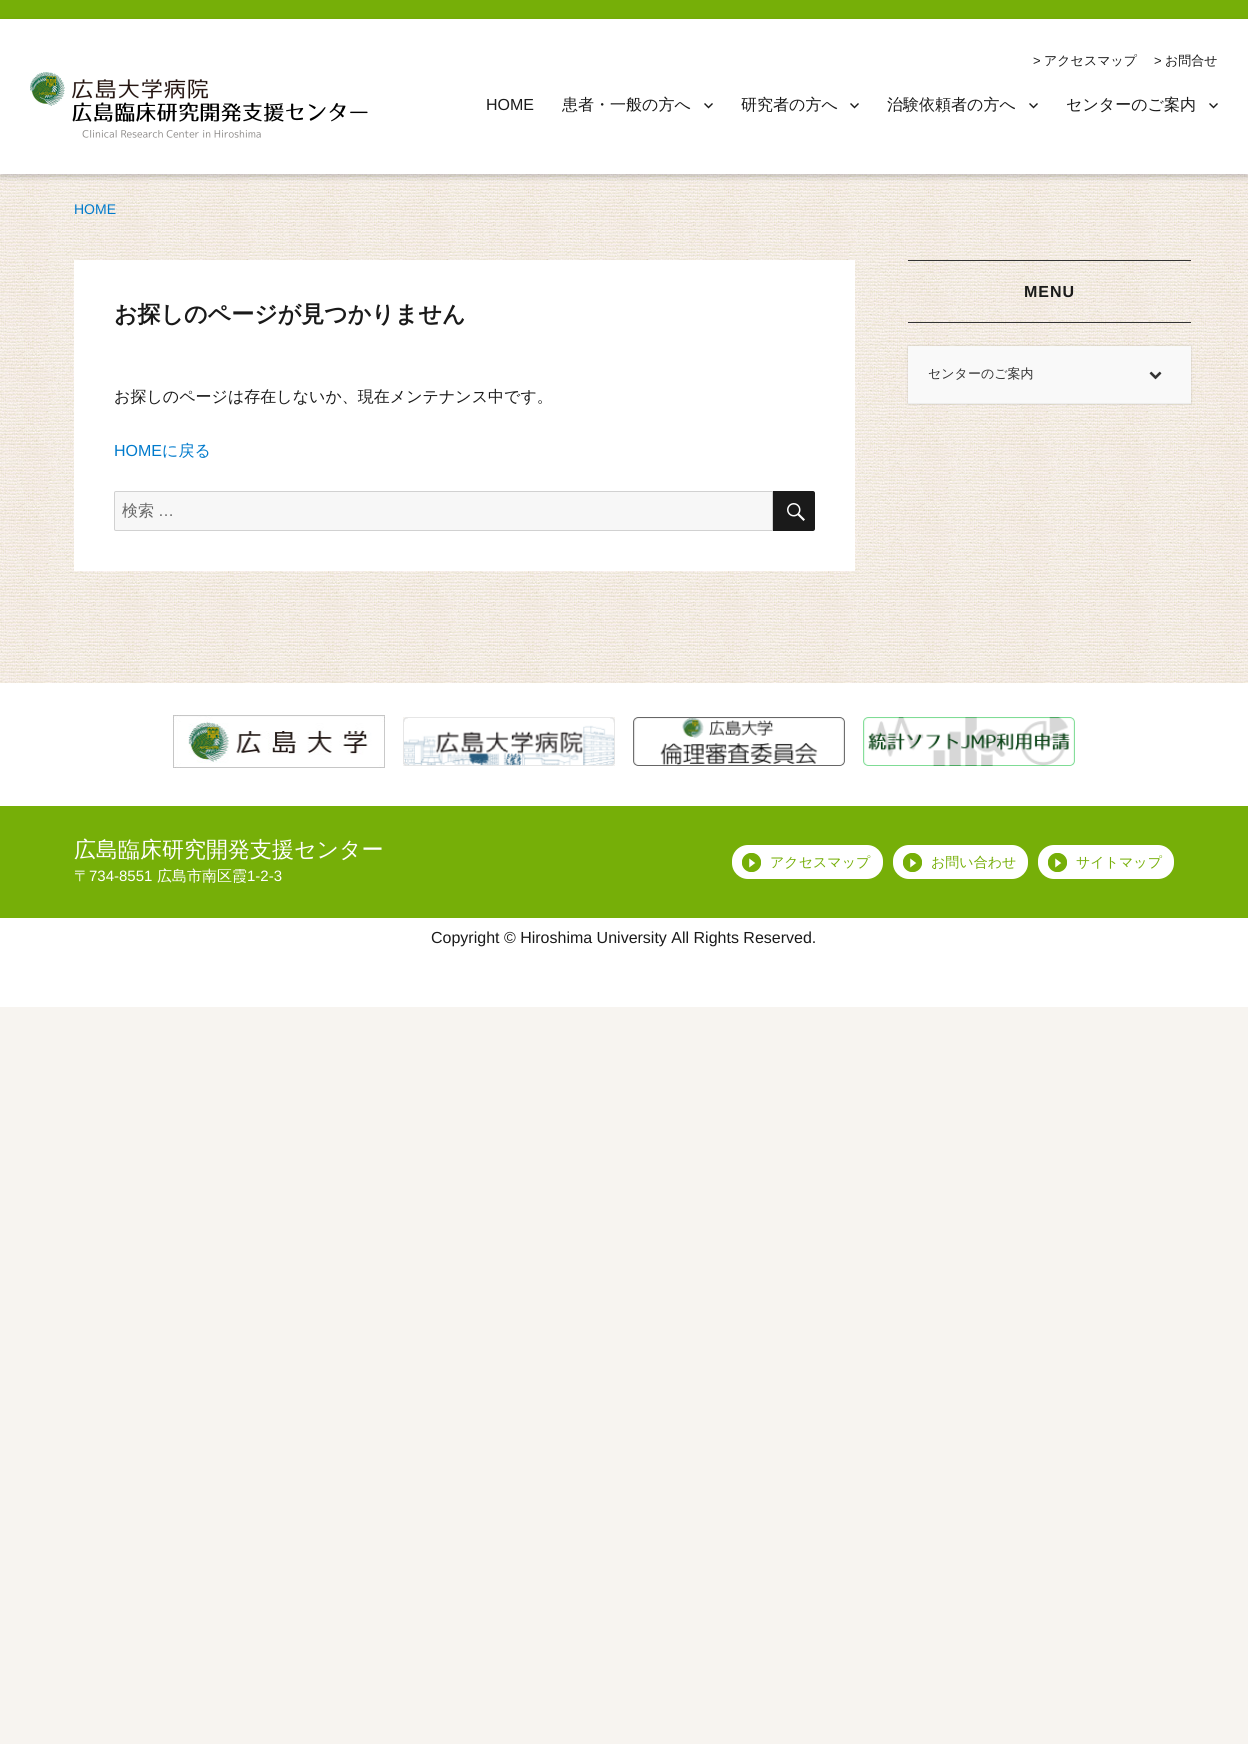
import math
import cairocffi as cairo

surface = cairo.ImageSurface(cairo.FORMAT_RGB24, 1248, 1744)
cr = cairo.Context(surface)
options = cairo.FontOptions()
options.set_hint_metrics(cairo.HINT_METRICS_OFF)
options.set_hint_style(cairo.HINT_STYLE_NONE)
cr.set_font_options(options)
cr.set_miter_limit(4)


def use_color(code):
    cr.set_source_rgb(*(v / 255 for v in bytes.fromhex(code[-6:])))


def spaced_text(x, y, s, letter, word):
    cr.move_to(x, y)
    for ch in s:
        cr.show_text(ch)
        cr.rel_move_to(letter + word * (ch == ' '), 0)


def round_rect(x, y, w, h, r):
    cr.new_sub_path()
    for i, (u, v) in enumerate([(x + w - r, y + h - r), (x + r, y + h - r), (x + r, y + r), (x + w - r, y + r)]):
        cr.arc(u, v, r, i * math.pi / 2, (i + 1) * math.pi / 2)
    cr.close_path()


def shadow(x, y, w, h, r, blur, alpha):
    cr.push_group_with_content(cairo.CONTENT_ALPHA)
    cr.set_operator(cairo.OPERATOR_SOURCE)
    for i in range(15, -16, -2):
        e = blur * i / 6
        if min(w, h) + 2 * e > 0:
            cr.set_source_rgba(0, 0, 0, alpha * math.erfc((i - 1) / 8.5) / 2)
            round_rect(x - e, y - e, w + 2 * e, h + 2 * e, max(0, min(r + e + blur * .6, min(w, h) / 2 + e)))
            cr.fill()
    cr.mask(cr.pop_group())


def picture(path, x, y, w, h):
    cr.save()
    cr.set_source_surface(cairo.ImageSurface.create_from_png(path), x, y)
    cr.rectangle(x, y, w, h)
    cr.fill()
    cr.restore()


use_color("#f7f4f0")
cr.paint()
use_color("#ffffff")
cr.rectangle(0, 19, 1248, 988)
cr.fill()
use_color("#76af08")
cr.rectangle(0, 0, 1248, 19)
cr.fill()
picture("img3.png", 0, 174, 1248, 509)
cr.save()
cr.set_fill_rule(cairo.FILL_RULE_EVEN_ODD)
cr.new_path()
cr.move_to(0, 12)
cr.line_to(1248, 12)
cr.line_to(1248, 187)
cr.line_to(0, 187)
cr.close_path()
cr.move_to(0, 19)
cr.line_to(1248, 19)
cr.line_to(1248, 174)
cr.line_to(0, 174)
cr.close_path()
cr.clip()
use_color("#000000")
shadow(0, 22, 1248, 155, 0, 3, 0.2)
cr.restore()
cr.select_font_face("Liberation Sans")
cr.set_font_size(13)
use_color("#1a1a1a")
cr.move_to(1033, 65)
cr.show_text(">")
cr.select_font_face("WenQuanYi Zen Hei Medium")
cr.move_to(1044, 65)
cr.show_text("アクセスマップ")
cr.select_font_face("Liberation Sans")
cr.move_to(1154, 65)
cr.show_text(">")
cr.select_font_face("WenQuanYi Zen Hei Medium")
cr.move_to(1165, 65)
cr.show_text("お問合せ")
picture("img1.png", 30, 72, 338, 66)
cr.select_font_face("Liberation Sans")
cr.set_font_size(16)
cr.move_to(486, 110)
cr.show_text("HOME")
cr.select_font_face("WenQuanYi Zen Hei Medium")
cr.move_to(562, 110)
cr.show_text("患者・一般の方へ")
picture("img2.png", 704, 103, 9, 6)
cr.move_to(741, 110)
cr.show_text("研究者の方へ")
picture("img2.png", 850, 103, 9, 6)
cr.move_to(887, 110)
cr.show_text("治験依頼者の方へ")
picture("img2.png", 1029, 103, 9, 6)
cr.move_to(1066, 110)
cr.show_text("センターのご案内")
picture("img2.png", 1209, 103, 9, 6)
cr.select_font_face("Liberation Sans")
cr.set_font_size(14)
use_color("#007acc")
cr.move_to(74, 214)
cr.show_text("HOME")
use_color("#ffffff")
cr.rectangle(74, 260, 781, 311)
cr.fill()
cr.select_font_face("WenQuanYi Zen Hei", cairo.FONT_SLANT_NORMAL, cairo.FONT_WEIGHT_BOLD)
cr.set_font_size(23)
use_color("#1a1a1a")
cr.move_to(114, 322)
cr.show_text("お探しのページが見つかりません")
cr.select_font_face("WenQuanYi Zen Hei Medium")
cr.set_font_size(16)
cr.move_to(114, 402)
cr.show_text("お探しのページは存在しないか、現在メンテナンス中です。")
cr.select_font_face("Liberation Sans")
use_color("#007acc")
cr.move_to(114, 456)
cr.show_text("HOME")
cr.select_font_face("WenQuanYi Zen Hei Medium")
cr.move_to(162, 456)
cr.show_text("に戻る")
use_color("#f7f7f7")
cr.new_path()
cr.move_to(116, 491.5)
cr.line_to(772.5, 491.5)
cr.line_to(772.5, 530.5)
cr.line_to(116, 530.5)
cr.curve_to(115, 530.5, 114.5, 530, 114.5, 529)
cr.line_to(114.5, 493)
cr.curve_to(114.5, 492, 115, 491.5, 116, 491.5)
cr.close_path()
cr.fill_preserve()
use_color("#d1d1d1")
cr.set_line_width(1)
cr.stroke()
use_color("#686868")
cr.move_to(122, 516)
cr.show_text("検索")
cr.select_font_face("Liberation Sans")
cr.move_to(158, 516)
cr.show_text("…")
use_color("#1a1a1a")
cr.new_path()
cr.move_to(773, 491)
cr.line_to(813, 491)
cr.curve_to(814, 491, 815, 492, 815, 493)
cr.line_to(815, 529)
cr.curve_to(815, 530, 814, 531, 813, 531)
cr.line_to(773, 531)
cr.close_path()
cr.fill()
picture("img4.png", 787, 503, 18, 18)
use_color("#333333")
cr.rectangle(908, 260, 283, 1)
cr.fill()
cr.rectangle(908, 322, 283, 1)
cr.fill()
cr.select_font_face("Liberation Sans", cairo.FONT_SLANT_NORMAL, cairo.FONT_WEIGHT_BOLD)
use_color("#1a1a1a")
spaced_text(1024, 297, "MENU", 1, 0)
use_color("#000000")
shadow(908, 346, 283, 58, 0, 1, 0.17)
use_color("#f9f9f9")
cr.rectangle(908, 346, 283, 57)
cr.fill()
use_color("#ededed")
cr.rectangle(908, 403, 283, 1)
cr.fill()
cr.select_font_face("WenQuanYi Zen Hei Medium")
cr.set_font_size(13)
use_color("#333333")
cr.move_to(928, 378)
cr.show_text("センターのご案内")
picture("img5.png", 1149, 371, 13, 9)
picture("img6.png", 173, 715, 212, 53)
picture("img7.png", 403, 717, 212, 49)
picture("img8.png", 633, 717, 212, 49)
picture("img9.png", 863, 717, 212, 49)
use_color("#76af08")
cr.rectangle(0, 806, 1248, 112)
cr.fill()
cr.set_font_size(22)
use_color("#ffffff")
cr.move_to(74, 857)
cr.show_text("広島臨床研究開発支援センター")
cr.set_font_size(15)
cr.move_to(74, 881)
cr.show_text("〒")
cr.select_font_face("Liberation Sans")
cr.move_to(89, 881)
cr.show_text("734-8551")
cr.select_font_face("WenQuanYi Zen Hei Medium")
cr.move_to(157, 881)
cr.show_text("広島市南区霞")
cr.select_font_face("Liberation Sans")
cr.move_to(247, 881)
cr.show_text("1-2-3")
round_rect(732, 845, 151, 34, 16)
cr.fill()
picture("img10.png", 742, 853, 19, 19)
cr.select_font_face("WenQuanYi Zen Hei Medium")
cr.set_font_size(14)
use_color("#76af08")
cr.move_to(770, 867)
cr.show_text("アクセスマップ")
use_color("#ffffff")
round_rect(893, 845, 135, 34, 16)
cr.fill()
picture("img10.png", 903, 853, 19, 19)
use_color("#76af08")
cr.move_to(931, 867)
cr.show_text("お問い合わせ")
use_color("#ffffff")
round_rect(1038, 845, 136, 34, 16)
cr.fill()
picture("img10.png", 1048, 853, 19, 19)
use_color("#76af08")
cr.move_to(1076, 867)
cr.show_text("サイトマップ")
cr.select_font_face("Liberation Sans")
cr.set_font_size(16)
use_color("#1a1a1a")
cr.move_to(431, 943)
cr.show_text("Copyright © Hiroshima University All Rights Reserved.")
surface.write_to_png("result.png")
